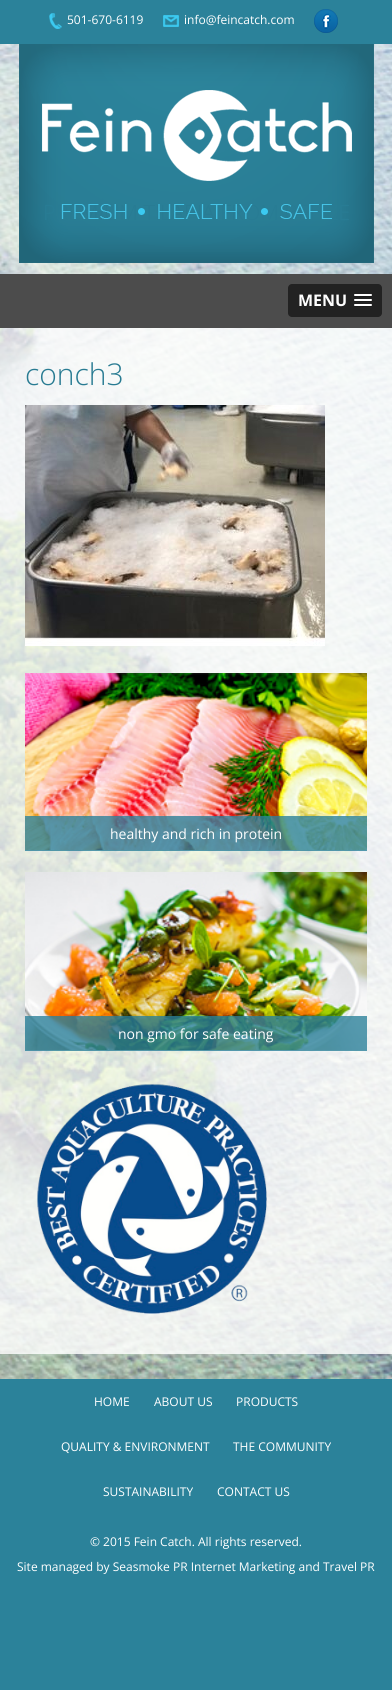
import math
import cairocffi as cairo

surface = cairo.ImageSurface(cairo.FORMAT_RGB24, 392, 1690)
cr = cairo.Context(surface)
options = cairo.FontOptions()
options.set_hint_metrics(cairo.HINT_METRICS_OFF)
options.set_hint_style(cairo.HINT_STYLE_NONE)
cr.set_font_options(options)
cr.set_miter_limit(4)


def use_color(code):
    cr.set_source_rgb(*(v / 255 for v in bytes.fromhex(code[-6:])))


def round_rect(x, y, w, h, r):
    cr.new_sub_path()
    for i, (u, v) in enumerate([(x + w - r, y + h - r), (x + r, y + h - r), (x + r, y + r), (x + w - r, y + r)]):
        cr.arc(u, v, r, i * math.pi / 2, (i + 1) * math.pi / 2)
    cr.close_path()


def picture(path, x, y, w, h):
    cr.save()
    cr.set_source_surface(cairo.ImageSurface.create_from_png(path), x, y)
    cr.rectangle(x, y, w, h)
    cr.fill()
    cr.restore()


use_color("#2b829a")
cr.paint()
picture("img1.png", 49, 13, 13, 16)
cr.select_font_face("Open Sans")
cr.set_font_size(12)
use_color("#ffffff")
cr.move_to(67, 24)
cr.show_text("501-670-6119")
picture("img2.png", 163, 15, 16, 12)
cr.move_to(184, 24)
cr.show_text("info@feincatch.com")
picture("img3.png", 314, 9, 24, 24)
picture("img4.png", 0, 44, 392, 1335)
picture("img5.png", 19, 44, 355, 219)
use_color("#4c4c4c")
cr.rectangle(0, 274, 392, 54)
cr.fill()
use_color("#222222")
round_rect(288, 284, 94, 33, 4)
cr.fill()
cr.select_font_face("Open Sans", cairo.FONT_SLANT_NORMAL, cairo.FONT_WEIGHT_BOLD)
cr.set_font_size(16)
use_color("#ffffff")
cr.move_to(298, 306)
cr.show_text("MENU")
use_color("#1a1a1a")
cr.new_path()
cr.move_to(354, 295.5)
cr.curve_to(353, 297.5, 357.5, 297, 357.5, 297)
cr.line_to(368.5, 297)
cr.curve_to(368.5, 297, 373, 297.5, 372, 295.5)
cr.curve_to(371, 296.5, 364.5, 296, 363, 296)
cr.curve_to(361.5, 296, 355, 296.5, 354, 295.5)
cr.close_path()
cr.fill()
use_color("#ffffff")
round_rect(354, 294, 18, 2, 1)
cr.fill()
use_color("#1a1a1a")
cr.new_path()
cr.move_to(354, 300.5)
cr.curve_to(353, 302.5, 357.5, 302, 357.5, 302)
cr.line_to(368.5, 302)
cr.curve_to(368.5, 302, 373, 302.5, 372, 300.5)
cr.curve_to(371, 301.5, 364.5, 301, 363, 301)
cr.curve_to(361.5, 301, 355, 301.5, 354, 300.5)
cr.close_path()
cr.fill()
use_color("#ffffff")
round_rect(354, 299, 18, 2, 1)
cr.fill()
use_color("#1a1a1a")
cr.new_path()
cr.move_to(354, 305.5)
cr.curve_to(353, 307.5, 357.5, 307, 357.5, 307)
cr.line_to(368.5, 307)
cr.curve_to(368.5, 307, 373, 307.5, 372, 305.5)
cr.curve_to(371, 306.5, 364.5, 306, 363, 306)
cr.curve_to(361.5, 306, 355, 306.5, 354, 305.5)
cr.close_path()
cr.fill()
use_color("#ffffff")
round_rect(354, 304, 18, 2, 1)
cr.fill()
cr.set_source_rgba(1, 1, 1, 0.5)
cr.rectangle(0, 328, 392, 1026)
cr.fill()
cr.set_source_rgba(1, 1, 1, 0.63)
cr.rectangle(0, 328, 392, 1026)
cr.fill()
cr.select_font_face("Open Sans Light")
cr.set_font_size(30)
use_color("#287b92")
cr.move_to(25, 385)
cr.show_text("conch3")
picture("img6.png", 25, 405, 300, 241)
picture("img7.png", 25, 673, 342, 177)
cr.set_source_rgba(0.169, 0.506, 0.604, 0.79)
cr.rectangle(25, 816, 342, 35)
cr.fill()
cr.select_font_face("Open Sans")
cr.set_font_size(14)
use_color("#ffffff")
cr.move_to(110, 839)
cr.show_text("healthy and rich in protein")
picture("img8.png", 25, 872, 342, 178)
cr.set_source_rgba(0.169, 0.506, 0.604, 0.79)
cr.rectangle(25, 1016, 342, 35)
cr.fill()
use_color("#ffffff")
cr.move_to(118, 1039)
cr.show_text("non gmo for safe eating")
picture("img9.png", 37, 1084, 230, 230)
cr.set_font_size(12)
cr.move_to(94, 1406)
cr.show_text("HOME")
cr.move_to(154, 1406)
cr.show_text("ABOUT US")
cr.move_to(236, 1406)
cr.show_text("PRODUCTS")
cr.move_to(61, 1451)
cr.show_text("QUALITY & ENVIRONMENT")
cr.move_to(233, 1451)
cr.show_text("THE COMMUNITY")
cr.move_to(103, 1496)
cr.show_text("SUSTAINABILITY")
cr.move_to(217, 1496)
cr.show_text("CONTACT US")
cr.move_to(90, 1546)
cr.show_text("© 2015 Fein Catch. All rights reserved.")
cr.move_to(17, 1571)
cr.show_text("Site managed by Seasmoke PR Internet Marketing and Travel PR")
surface.write_to_png("result.png")
